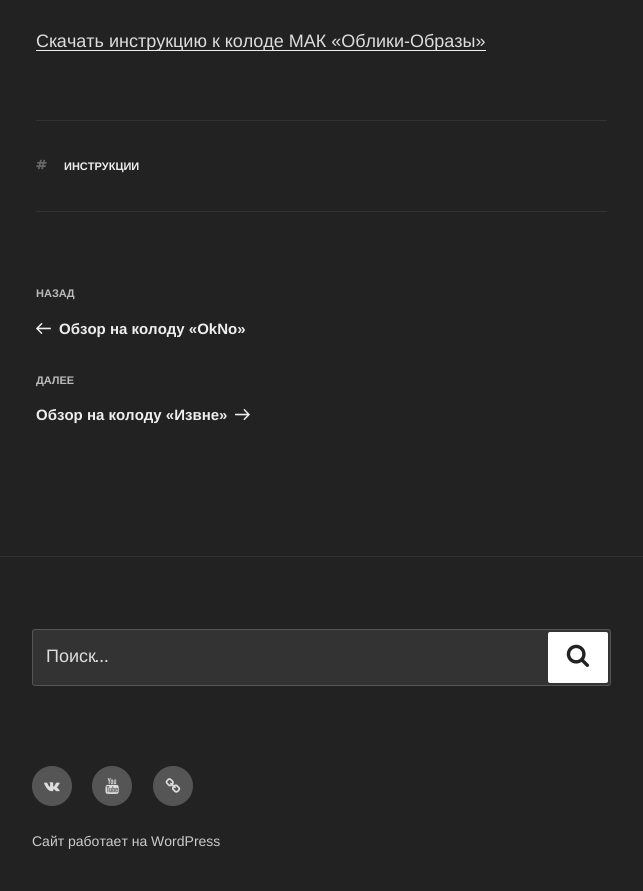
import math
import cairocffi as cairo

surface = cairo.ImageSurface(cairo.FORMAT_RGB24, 643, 891)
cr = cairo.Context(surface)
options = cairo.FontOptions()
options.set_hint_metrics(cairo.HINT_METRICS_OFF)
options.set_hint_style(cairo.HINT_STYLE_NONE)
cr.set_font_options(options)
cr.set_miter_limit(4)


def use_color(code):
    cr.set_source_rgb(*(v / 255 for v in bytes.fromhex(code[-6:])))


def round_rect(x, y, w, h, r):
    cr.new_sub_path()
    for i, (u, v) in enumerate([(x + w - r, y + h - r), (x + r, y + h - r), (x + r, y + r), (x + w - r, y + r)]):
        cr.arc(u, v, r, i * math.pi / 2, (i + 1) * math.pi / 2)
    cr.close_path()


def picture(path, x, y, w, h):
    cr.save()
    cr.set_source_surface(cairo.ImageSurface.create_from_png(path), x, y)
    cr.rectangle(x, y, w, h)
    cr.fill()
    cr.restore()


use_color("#222222")
cr.paint()
use_color("#f0f0f0")
cr.rectangle(36, 50, 450, 1)
cr.fill()
cr.select_font_face("Liberation Sans")
cr.set_font_size(18)
use_color("#dddddd")
cr.move_to(36, 47)
cr.show_text("Скачать инструкцию к колоде МАК «Облики-Образы»")
use_color("#333333")
cr.rectangle(36, 120, 571, 1)
cr.fill()
cr.rectangle(36, 211, 571, 1)
cr.fill()
picture("img1.png", 36, 159, 11, 11)
cr.select_font_face("Liberation Sans", cairo.FONT_SLANT_NORMAL, cairo.FONT_WEIGHT_BOLD)
cr.set_font_size(11)
use_color("#eeeeee")
cr.move_to(64, 170)
cr.show_text("ИНСТРУКЦИИ")
use_color("#bbbbbb")
cr.move_to(36, 297)
cr.show_text("НАЗАД")
picture("img2.png", 36, 323, 15, 11)
cr.set_font_size(15)
use_color("#eeeeee")
cr.move_to(59, 334)
cr.show_text("Обзор на колоду «OkNo»")
cr.set_font_size(11)
use_color("#bbbbbb")
cr.move_to(36, 384)
cr.show_text("ДАЛЕЕ")
cr.set_font_size(15)
use_color("#eeeeee")
cr.move_to(36, 420)
cr.show_text("Обзор на колоду «Извне»")
picture("img3.png", 235, 409, 15, 12)
use_color("#333333")
cr.rectangle(0, 556, 643, 1)
cr.fill()
round_rect(32.5, 629.5, 578, 56, 2.5)
cr.fill_preserve()
use_color("#555555")
cr.set_line_width(1)
cr.stroke()
cr.select_font_face("Liberation Sans")
cr.set_font_size(18)
use_color("#dddddd")
cr.move_to(46, 662)
cr.show_text("Поиск")
cr.select_font_face("Libre Franklin Thin")
cr.move_to(95, 662)
cr.show_text("…")
use_color("#ffffff")
round_rect(548, 632, 60, 51, 2)
cr.fill()
picture("img4.png", 566, 644, 23, 23)
use_color("#555555")
cr.arc(52, 786, 20, 0, 2 * math.pi)
cr.fill()
picture("img5.png", 44, 782, 16, 10)
cr.arc(112, 786, 20, 0, 2 * math.pi)
cr.fill()
picture("img6.png", 105, 778, 14, 16)
cr.arc(173, 786, 20, 0, 2 * math.pi)
cr.fill()
picture("img7.png", 165, 778, 16, 15)
cr.select_font_face("Liberation Sans")
cr.set_font_size(14)
use_color("#cccccc")
cr.move_to(32, 846)
cr.show_text("Сайт работает на WordPress")
surface.write_to_png("result.png")
